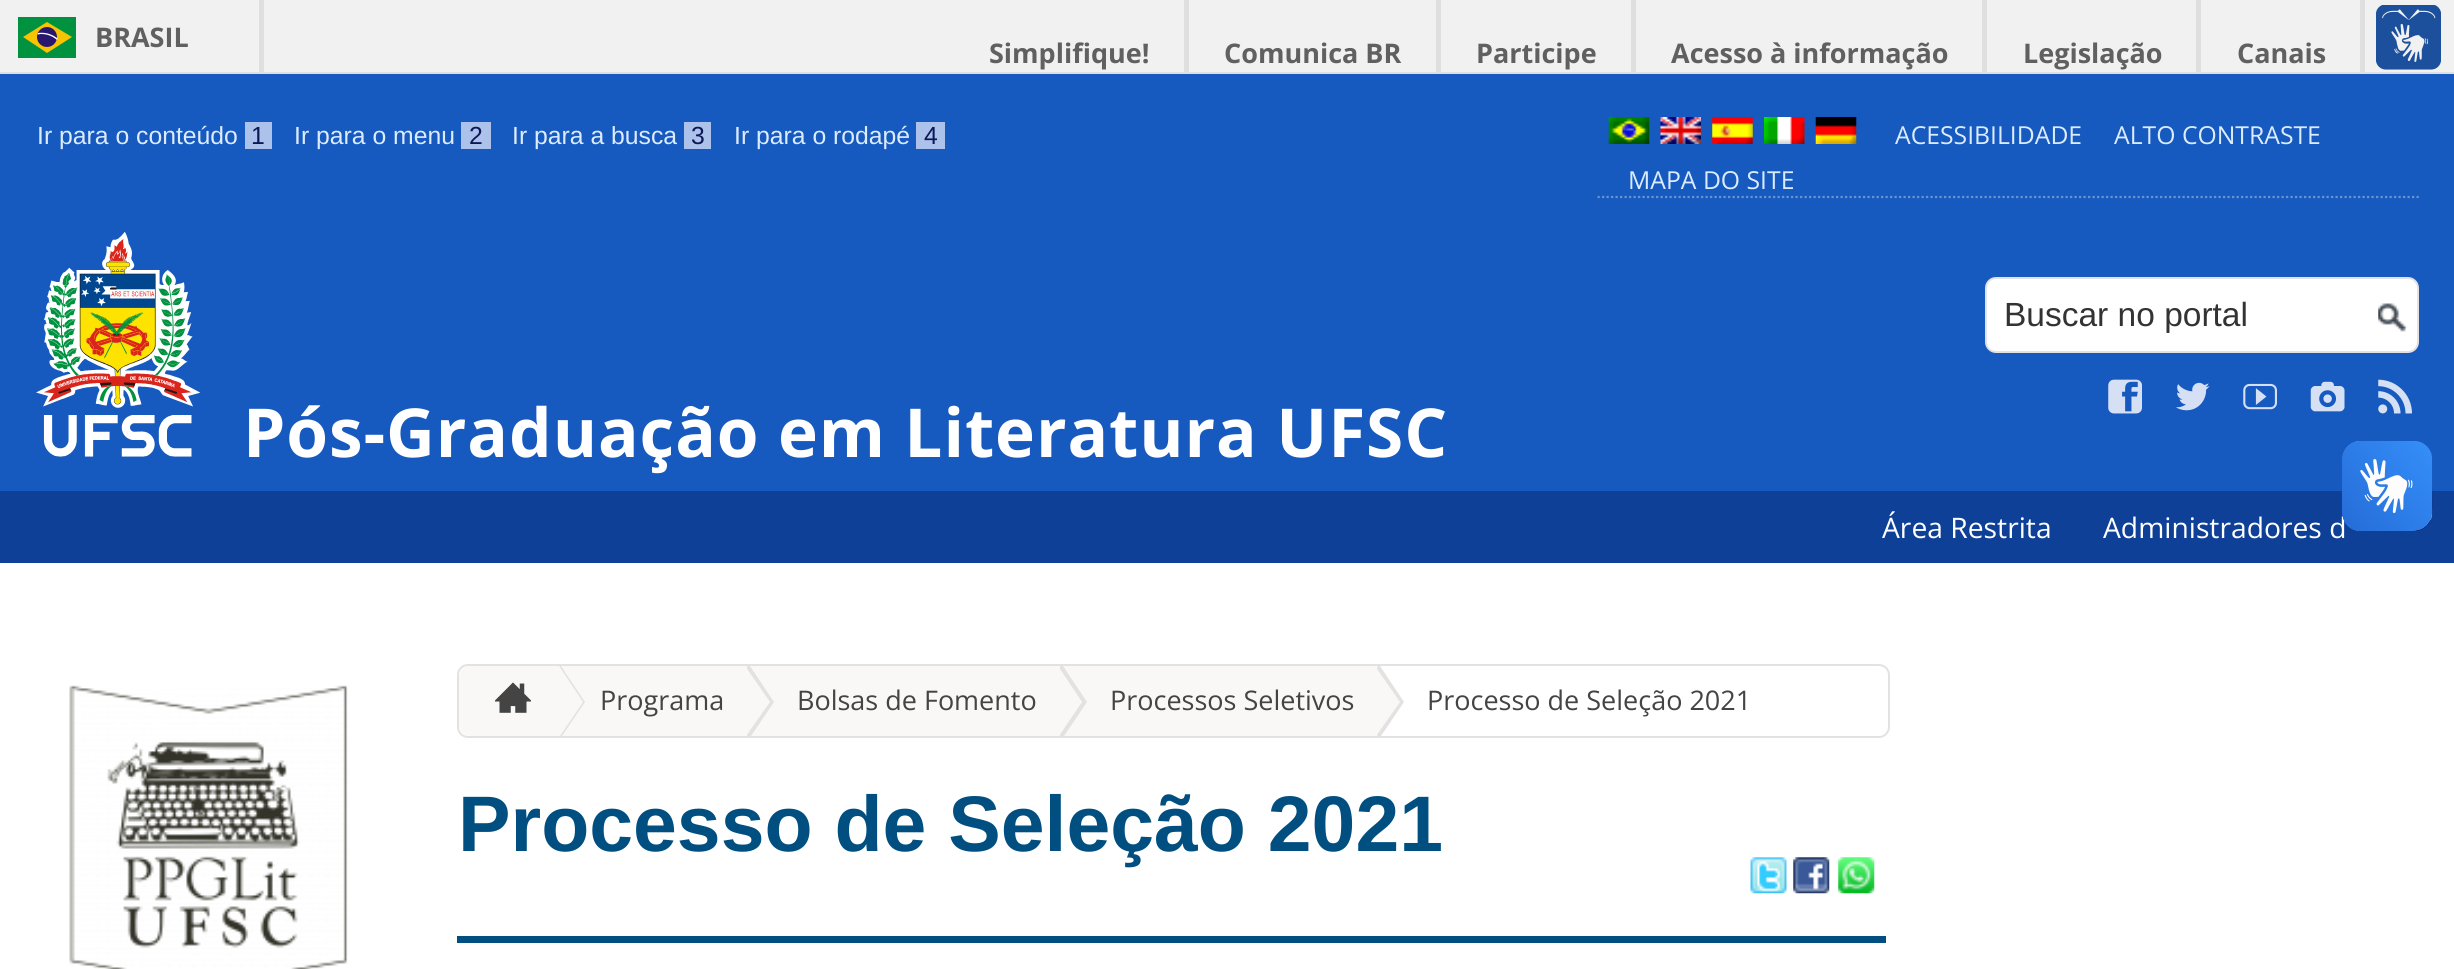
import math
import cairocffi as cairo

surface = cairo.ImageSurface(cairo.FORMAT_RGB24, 2454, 969)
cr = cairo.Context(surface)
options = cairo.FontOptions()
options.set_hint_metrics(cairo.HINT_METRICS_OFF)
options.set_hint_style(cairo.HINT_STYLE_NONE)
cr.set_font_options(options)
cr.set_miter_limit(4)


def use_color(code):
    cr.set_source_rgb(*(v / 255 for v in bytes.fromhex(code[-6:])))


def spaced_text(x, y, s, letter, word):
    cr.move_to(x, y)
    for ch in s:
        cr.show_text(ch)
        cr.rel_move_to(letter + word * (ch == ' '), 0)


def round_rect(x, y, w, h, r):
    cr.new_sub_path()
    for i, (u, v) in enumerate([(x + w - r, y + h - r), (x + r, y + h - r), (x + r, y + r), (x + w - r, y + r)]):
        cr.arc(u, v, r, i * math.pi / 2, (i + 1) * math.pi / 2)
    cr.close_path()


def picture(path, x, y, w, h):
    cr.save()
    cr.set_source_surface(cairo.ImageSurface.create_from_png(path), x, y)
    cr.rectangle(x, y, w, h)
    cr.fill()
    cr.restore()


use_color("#ffffff")
cr.paint()
use_color("#f1f1f1")
cr.rectangle(0, 0, 2454, 72)
cr.fill()
use_color("#dfdfdf")
cr.rectangle(0, 72, 2454, 2)
cr.fill()
cr.rectangle(259, 0, 5, 72)
cr.fill()
use_color("#00923f")
cr.rectangle(18, 17, 58, 41)
cr.fill()
use_color("#f8c300")
cr.new_path()
cr.move_to(47, 22)
cr.line_to(23, 37)
cr.line_to(47, 53)
cr.line_to(72, 37)
cr.close_path()
cr.fill()
use_color("#28166f")
cr.arc(47, 37, 10, 0, 2 * math.pi)
cr.fill()
use_color("#ffffff")
cr.new_path()
cr.move_to(41, 34)
cr.curve_to(47, 34, 52.5, 36, 57, 40)
cr.line_to(57.5, 38.5)
cr.curve_to(52, 34, 45, 32, 38, 33)
cr.line_to(37.5, 34.5)
cr.close_path()
cr.fill()
cr.select_font_face("Open Sans", cairo.FONT_SLANT_NORMAL, cairo.FONT_WEIGHT_BOLD)
cr.set_font_size(27)
use_color("#606060")
cr.move_to(95, 47)
cr.show_text("BRASIL")
picture("img1.png", 2376, 5, 65, 65)
use_color("#dfdfdf")
cr.rectangle(1184, 0, 5, 72)
cr.fill()
use_color("#606060")
cr.move_to(989, 63)
cr.show_text("Simplifique!")
use_color("#dfdfdf")
cr.rectangle(1436, 0, 5, 72)
cr.fill()
use_color("#606060")
cr.move_to(1224, 63)
cr.show_text("Comunica BR")
use_color("#dfdfdf")
cr.rectangle(1631, 0, 5, 72)
cr.fill()
use_color("#606060")
cr.move_to(1476, 63)
cr.show_text("Participe")
use_color("#dfdfdf")
cr.rectangle(1982, 0, 5, 72)
cr.fill()
use_color("#606060")
cr.move_to(1671, 63)
cr.show_text("Acesso à informação")
use_color("#dfdfdf")
cr.rectangle(2196, 0, 5, 72)
cr.fill()
use_color("#606060")
cr.move_to(2023, 63)
cr.show_text("Legislação")
use_color("#dfdfdf")
cr.rectangle(2360, 0, 5, 72)
cr.fill()
use_color("#606060")
cr.move_to(2237, 63)
cr.show_text("Canais")
use_color("#1659bf")
cr.rectangle(0, 74, 2454, 417)
cr.fill()
cr.select_font_face("Liberation Sans")
cr.set_font_size(24.75)
use_color("#dcecff")
cr.move_to(37, 144)
cr.show_text("Ir para o conteúdo")
use_color("#adc2eb")
cr.rectangle(245, 122, 27, 27)
cr.fill()
use_color("#0a1857")
cr.move_to(251, 144)
cr.show_text("1")
use_color("#dcecff")
cr.move_to(294, 144)
cr.show_text("Ir para o menu")
use_color("#adc2eb")
cr.rectangle(461, 122, 30, 27)
cr.fill()
use_color("#0a1857")
cr.move_to(469, 144)
cr.show_text("2")
use_color("#dcecff")
cr.move_to(512, 144)
cr.show_text("Ir para a busca")
use_color("#adc2eb")
cr.rectangle(684, 122, 27, 27)
cr.fill()
use_color("#0a1857")
cr.move_to(691, 144)
cr.show_text("3")
use_color("#dcecff")
cr.move_to(734, 144)
cr.show_text("Ir para o rodapé")
use_color("#adc2eb")
cr.rectangle(916, 122, 29, 27)
cr.fill()
use_color("#0a1857")
cr.move_to(924, 144)
cr.show_text("4")
cr.new_path()
cr.move_to(1597.5, 197)
cr.line_to(2419, 197)
use_color("#6893cb")
cr.set_line_width(2.2)
cr.set_dash([2.25, 2.25])
cr.stroke()
picture("img2.png", 1608, 117, 42, 27)
picture("img3.png", 1660, 117, 41, 27)
picture("img4.png", 1712, 117, 41, 27)
picture("img5.png", 1764, 117, 41, 27)
picture("img6.png", 1815, 117, 42, 27)
cr.select_font_face("Open Sans")
use_color("#dcecff")
cr.move_to(1895, 144)
cr.show_text("ACESSIBILIDADE")
cr.move_to(2114, 144)
cr.show_text("ALTO CONTRASTE")
cr.move_to(1628, 189)
cr.show_text("MAPA DO SITE")
use_color("#ffffff")
round_rect(1986, 278, 432, 74, 10)
cr.fill_preserve()
use_color("#e4e2e1")
cr.set_line_width(2)
cr.set_dash([])
cr.stroke()
cr.select_font_face("Liberation Sans")
cr.set_font_size(33.5)
use_color("#333333")
cr.move_to(2004, 326)
cr.show_text("Buscar no portal")
picture("img7.png", 2378, 303, 30, 29)
picture("img8.png", 2108, 379, 34, 35)
picture("img9.png", 2176, 382, 34, 29)
picture("img10.png", 2243, 383, 34, 27)
picture("img11.png", 2310, 381, 35, 31)
picture("img12.png", 2378, 379, 34, 35)
picture("img13.png", 36, 232, 164, 225)
cr.select_font_face("Open Sans", cairo.FONT_SLANT_NORMAL, cairo.FONT_WEIGHT_BOLD)
cr.set_font_size(67.5)
use_color("#ffffff")
spaced_text(243, 457, "Pós-Graduação em Literatura UFSC", 0.9, 0)
use_color("#0f4098")
cr.rectangle(0, 491, 2454, 72)
cr.fill()
cr.select_font_face("Open Sans")
cr.set_font_size(28.25)
use_color("#ffffff")
cr.move_to(1882, 538)
cr.show_text("Área Restrita")
cr.move_to(2103, 538)
cr.show_text("Administradores d")
picture("img14.png", 69, 685, 279, 284)
round_rect(458, 665, 1431, 72, 10)
use_color("#e4e2e1")
cr.stroke()
use_color("#faf8f6")
cr.new_path()
cr.move_to(470, 666)
cr.line_to(547, 666)
cr.line_to(547, 736)
cr.line_to(470, 736)
cr.curve_to(464, 736, 459, 731, 459, 725)
cr.line_to(459, 677)
cr.curve_to(459, 671, 464, 666, 470, 666)
cr.close_path()
cr.fill()
cr.rectangle(561, 666, 181, 70)
cr.fill()
use_color("#e4e2e1")
cr.new_path()
cr.move_to(561, 666)
cr.line_to(585, 702)
cr.line_to(562, 736)
cr.line_to(549, 736)
cr.line_to(549, 666)
cr.close_path()
cr.fill()
use_color("#faf8f6")
cr.new_path()
cr.move_to(559, 666)
cr.line_to(583, 702)
cr.line_to(560, 736)
cr.line_to(547, 736)
cr.line_to(547, 666)
cr.close_path()
cr.fill()
picture("img15.png", 495, 682, 36, 31)
cr.rectangle(745, 666, 310, 70)
cr.fill()
use_color("#e4e2e1")
cr.new_path()
cr.move_to(750, 666)
cr.line_to(774, 702)
cr.line_to(751, 736)
cr.line_to(747, 736)
cr.line_to(747, 666)
cr.close_path()
cr.fill()
use_color("#faf8f6")
cr.new_path()
cr.move_to(745, 666)
cr.line_to(770, 702)
cr.line_to(746, 736)
cr.line_to(742, 736)
cr.line_to(742, 666)
cr.close_path()
cr.fill()
cr.set_font_size(27)
use_color("#444444")
cr.move_to(600, 710)
cr.show_text("Programa")
use_color("#faf8f6")
cr.rectangle(1058, 666, 314, 70)
cr.fill()
use_color("#e4e2e1")
cr.new_path()
cr.move_to(1063, 666)
cr.line_to(1087, 702)
cr.line_to(1064, 736)
cr.line_to(1060, 736)
cr.line_to(1060, 666)
cr.close_path()
cr.fill()
use_color("#faf8f6")
cr.new_path()
cr.move_to(1058, 666)
cr.line_to(1082, 702)
cr.line_to(1059, 736)
cr.line_to(1055, 736)
cr.line_to(1055, 666)
cr.close_path()
cr.fill()
use_color("#444444")
cr.move_to(797, 710)
cr.show_text("Bolsas de Fomento")
use_color("#e4e2e1")
cr.new_path()
cr.move_to(1380, 666)
cr.line_to(1404, 702)
cr.line_to(1381, 736)
cr.line_to(1377, 736)
cr.line_to(1377, 666)
cr.close_path()
cr.fill()
use_color("#faf8f6")
cr.new_path()
cr.move_to(1375, 666)
cr.line_to(1400, 702)
cr.line_to(1376, 736)
cr.line_to(1372, 736)
cr.line_to(1372, 666)
cr.close_path()
cr.fill()
use_color("#444444")
cr.move_to(1110, 710)
cr.show_text("Processos Seletivos")
cr.move_to(1427, 710)
cr.show_text("Processo de Seleção 2021")
cr.select_font_face("Liberation Sans", cairo.FONT_SLANT_NORMAL, cairo.FONT_WEIGHT_BOLD)
cr.set_font_size(78.75)
use_color("#004f80")
cr.move_to(458, 851)
cr.show_text("Processo de Seleção 2021")
cr.rectangle(457, 936, 1429, 7)
cr.fill()
picture("img16.png", 1750, 857, 37, 37)
picture("img17.png", 1793, 857, 37, 37)
picture("img18.png", 1838, 857, 37, 37)
picture("img19.png", 2342, 441, 91, 90)
picture("img20.png", 2342, 441, 90, 90)
surface.write_to_png("result.png")
